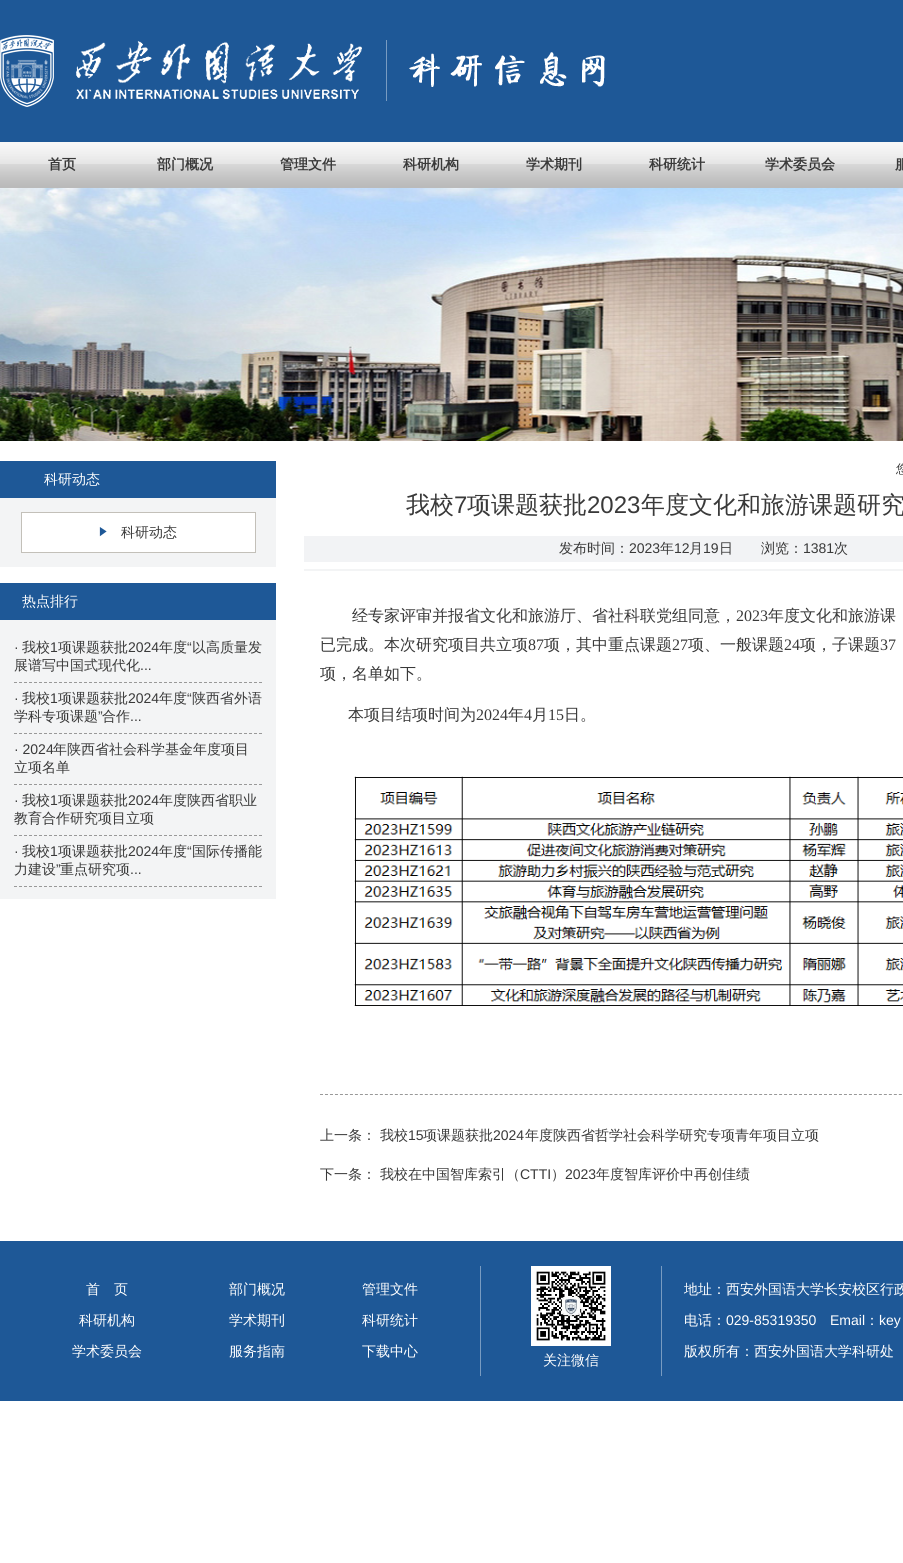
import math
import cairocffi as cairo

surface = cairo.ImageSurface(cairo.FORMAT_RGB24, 903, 1563)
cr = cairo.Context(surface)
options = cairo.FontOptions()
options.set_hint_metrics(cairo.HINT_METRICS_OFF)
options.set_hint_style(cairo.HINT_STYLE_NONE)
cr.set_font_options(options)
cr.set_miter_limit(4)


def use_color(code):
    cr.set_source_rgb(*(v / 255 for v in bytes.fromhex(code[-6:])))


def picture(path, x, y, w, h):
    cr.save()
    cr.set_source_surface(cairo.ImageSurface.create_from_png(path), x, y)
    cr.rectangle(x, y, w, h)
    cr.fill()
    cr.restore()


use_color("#ffffff")
cr.paint()
use_color("#1e5897")
cr.rectangle(0, 0, 903, 142)
cr.fill()
picture("img1.png", 0, 35, 605, 72)
picture("img2.png", 0, 142, 903, 46)
cr.select_font_face("WenQuanYi Zen Hei", cairo.FONT_SLANT_NORMAL, cairo.FONT_WEIGHT_BOLD)
cr.set_font_size(14)
use_color("#393939")
cr.move_to(48, 169)
cr.show_text("首页")
cr.move_to(157, 169)
cr.show_text("部门概况")
cr.move_to(280, 169)
cr.show_text("管理文件")
cr.move_to(403, 169)
cr.show_text("科研机构")
cr.move_to(526, 169)
cr.show_text("学术期刊")
cr.move_to(649, 169)
cr.show_text("科研统计")
cr.move_to(765, 169)
cr.show_text("学术委员会")
cr.move_to(895, 169)
cr.show_text("服")
picture("img3.png", 0, 188, 903, 253)
use_color("#1e5897")
cr.rectangle(0, 461, 276, 37)
cr.fill()
cr.select_font_face("WenQuanYi Zen Hei Medium")
use_color("#ffffff")
cr.move_to(44, 484)
cr.show_text("科研动态")
use_color("#f3f4f5")
cr.rectangle(0, 498, 276, 69)
cr.fill()
use_color("#ffffff")
cr.rectangle(21.5, 512.5, 234, 40)
cr.fill_preserve()
use_color("#c3c0b9")
cr.set_line_width(1)
cr.stroke()
picture("img4.png", 99, 527, 8, 10)
use_color("#393939")
cr.move_to(121, 537)
cr.show_text("科研动态")
use_color("#1e5897")
cr.rectangle(0, 583, 276, 37)
cr.fill()
use_color("#ffffff")
cr.move_to(22, 606)
cr.show_text("热点排行")
use_color("#f3f4f5")
cr.rectangle(0, 620, 276, 279)
cr.fill()
cr.new_path()
cr.move_to(14, 682.5)
cr.line_to(262, 682.5)
use_color("#999999")
cr.set_dash([3, 2])
cr.stroke()
use_color("#393939")
cr.move_to(22, 652)
cr.show_text("我校")
cr.select_font_face("Liberation Sans")
cr.move_to(50, 652)
cr.show_text("1")
cr.select_font_face("WenQuanYi Zen Hei Medium")
cr.move_to(58, 652)
cr.show_text("项课题获批")
cr.select_font_face("Liberation Sans")
cr.move_to(128, 652)
cr.show_text("2024")
cr.select_font_face("WenQuanYi Zen Hei Medium")
cr.move_to(159, 652)
cr.show_text("年度")
cr.select_font_face("Liberation Sans")
cr.move_to(187, 652)
cr.show_text("“")
cr.select_font_face("WenQuanYi Zen Hei Medium")
cr.move_to(192, 652)
cr.show_text("以高质量发")
cr.select_font_face("Liberation Sans")
cr.move_to(14, 652)
cr.show_text("·")
cr.select_font_face("WenQuanYi Zen Hei Medium")
cr.move_to(14, 670)
cr.show_text("展谱写中国式现代化")
cr.select_font_face("Liberation Sans")
cr.move_to(140, 670)
cr.show_text("...")
cr.new_path()
cr.move_to(14, 733.5)
cr.line_to(262, 733.5)
use_color("#999999")
cr.stroke()
cr.select_font_face("WenQuanYi Zen Hei Medium")
use_color("#393939")
cr.move_to(22, 703)
cr.show_text("我校")
cr.select_font_face("Liberation Sans")
cr.move_to(50, 703)
cr.show_text("1")
cr.select_font_face("WenQuanYi Zen Hei Medium")
cr.move_to(58, 703)
cr.show_text("项课题获批")
cr.select_font_face("Liberation Sans")
cr.move_to(128, 703)
cr.show_text("2024")
cr.select_font_face("WenQuanYi Zen Hei Medium")
cr.move_to(159, 703)
cr.show_text("年度")
cr.select_font_face("Liberation Sans")
cr.move_to(187, 703)
cr.show_text("“")
cr.select_font_face("WenQuanYi Zen Hei Medium")
cr.move_to(192, 703)
cr.show_text("陕西省外语")
cr.select_font_face("Liberation Sans")
cr.move_to(14, 703)
cr.show_text("·")
cr.select_font_face("WenQuanYi Zen Hei Medium")
cr.move_to(14, 721)
cr.show_text("学科专项课题")
cr.select_font_face("Liberation Sans")
cr.move_to(98, 721)
cr.show_text("”")
cr.select_font_face("WenQuanYi Zen Hei Medium")
cr.move_to(102, 721)
cr.show_text("合作")
cr.select_font_face("Liberation Sans")
cr.move_to(130, 721)
cr.show_text("...")
cr.new_path()
cr.move_to(14, 784.5)
cr.line_to(262, 784.5)
use_color("#999999")
cr.stroke()
use_color("#393939")
cr.move_to(14, 754)
cr.show_text("· 2024")
cr.select_font_face("WenQuanYi Zen Hei Medium")
cr.move_to(53, 754)
cr.show_text("年陕西省社会科学基金年度项目")
cr.move_to(14, 772)
cr.show_text("立项名单")
cr.new_path()
cr.move_to(14, 835.5)
cr.line_to(262, 835.5)
use_color("#999999")
cr.stroke()
cr.select_font_face("Liberation Sans")
use_color("#393939")
cr.move_to(14, 805)
cr.show_text("·")
cr.select_font_face("WenQuanYi Zen Hei Medium")
cr.move_to(22, 805)
cr.show_text("我校")
cr.select_font_face("Liberation Sans")
cr.move_to(50, 805)
cr.show_text("1")
cr.select_font_face("WenQuanYi Zen Hei Medium")
cr.move_to(58, 805)
cr.show_text("项课题获批")
cr.select_font_face("Liberation Sans")
cr.move_to(128, 805)
cr.show_text("2024")
cr.select_font_face("WenQuanYi Zen Hei Medium")
cr.move_to(159, 805)
cr.show_text("年度陕西省职业")
cr.move_to(14, 823)
cr.show_text("教育合作研究项目立项")
cr.new_path()
cr.move_to(14, 886.5)
cr.line_to(262, 886.5)
use_color("#999999")
cr.stroke()
use_color("#393939")
cr.move_to(22, 856)
cr.show_text("我校")
cr.select_font_face("Liberation Sans")
cr.move_to(50, 856)
cr.show_text("1")
cr.select_font_face("WenQuanYi Zen Hei Medium")
cr.move_to(58, 856)
cr.show_text("项课题获批")
cr.select_font_face("Liberation Sans")
cr.move_to(128, 856)
cr.show_text("2024")
cr.select_font_face("WenQuanYi Zen Hei Medium")
cr.move_to(159, 856)
cr.show_text("年度")
cr.select_font_face("Liberation Sans")
cr.move_to(187, 856)
cr.show_text("“")
cr.select_font_face("WenQuanYi Zen Hei Medium")
cr.move_to(192, 856)
cr.show_text("国际传播能")
cr.select_font_face("Liberation Sans")
cr.move_to(14, 856)
cr.show_text("·")
cr.select_font_face("WenQuanYi Zen Hei Medium")
cr.move_to(14, 874)
cr.show_text("力建设")
cr.select_font_face("Liberation Sans")
cr.move_to(56, 874)
cr.show_text("”")
cr.select_font_face("WenQuanYi Zen Hei Medium")
cr.move_to(60, 874)
cr.show_text("重点研究项")
cr.select_font_face("Liberation Sans")
cr.move_to(130, 874)
cr.show_text("...")
cr.select_font_face("WenQuanYi Zen Hei Medium")
cr.set_font_size(12)
cr.move_to(896, 473)
cr.show_text("您")
use_color("#f3f4f5")
cr.rectangle(304, 569, 599, 2)
cr.fill()
cr.set_font_size(24)
use_color("#393939")
cr.move_to(406, 513)
cr.show_text("我校")
cr.select_font_face("Liberation Sans")
cr.move_to(454, 513)
cr.show_text("7")
cr.select_font_face("WenQuanYi Zen Hei Medium")
cr.move_to(467, 513)
cr.show_text("项课题获批")
cr.select_font_face("Liberation Sans")
cr.move_to(587, 513)
cr.show_text("2023")
cr.select_font_face("WenQuanYi Zen Hei Medium")
cr.move_to(641, 513)
cr.show_text("年度文化和旅游课题研究")
use_color("#f2f3f5")
cr.rectangle(304, 536, 599, 26)
cr.fill()
cr.set_font_size(14)
use_color("#393939")
cr.move_to(559, 553)
cr.show_text("发布时间：")
cr.select_font_face("Liberation Sans")
cr.move_to(629, 553)
cr.show_text("2023")
cr.select_font_face("WenQuanYi Zen Hei Medium")
cr.move_to(660, 553)
cr.show_text("年")
cr.select_font_face("Liberation Sans")
cr.move_to(674, 553)
cr.show_text("12")
cr.select_font_face("WenQuanYi Zen Hei Medium")
cr.move_to(689, 553)
cr.show_text("月")
cr.select_font_face("Liberation Sans")
cr.move_to(703, 553)
cr.show_text("19")
cr.select_font_face("WenQuanYi Zen Hei Medium")
cr.move_to(719, 553)
cr.show_text("日　　浏览：")
cr.select_font_face("Liberation Sans")
cr.move_to(803, 553)
cr.show_text("1381")
cr.select_font_face("WenQuanYi Zen Hei Medium")
cr.move_to(834, 553)
cr.show_text("次")
cr.set_font_size(16)
cr.move_to(352, 621)
cr.show_text("经专家评审并报省文化和旅游厅、省社科联党组同意，")
cr.select_font_face("Liberation Serif")
cr.move_to(736, 621)
cr.show_text("2023")
cr.select_font_face("WenQuanYi Zen Hei Medium")
cr.move_to(768, 621)
cr.show_text("年度文化和旅游课")
cr.move_to(320, 650)
cr.show_text("已完成。本次研究项目共立项")
cr.select_font_face("Liberation Serif")
cr.move_to(528, 650)
cr.show_text("87")
cr.select_font_face("WenQuanYi Zen Hei Medium")
cr.move_to(544, 650)
cr.show_text("项，其中重点课题")
cr.select_font_face("Liberation Serif")
cr.move_to(672, 650)
cr.show_text("27")
cr.select_font_face("WenQuanYi Zen Hei Medium")
cr.move_to(688, 650)
cr.show_text("项、一般课题")
cr.select_font_face("Liberation Serif")
cr.move_to(784, 650)
cr.show_text("24")
cr.select_font_face("WenQuanYi Zen Hei Medium")
cr.move_to(800, 650)
cr.show_text("项，子课题")
cr.select_font_face("Liberation Serif")
cr.move_to(880, 650)
cr.show_text("37")
cr.select_font_face("WenQuanYi Zen Hei Medium")
cr.move_to(320, 679)
cr.show_text("项，名单如下。")
cr.move_to(348, 720)
cr.show_text("本项目结项时间为")
cr.select_font_face("Liberation Serif")
cr.move_to(476, 720)
cr.show_text("2024")
cr.select_font_face("WenQuanYi Zen Hei Medium")
cr.move_to(508, 720)
cr.show_text("年")
cr.select_font_face("Liberation Serif")
cr.move_to(524, 720)
cr.show_text("4")
cr.select_font_face("WenQuanYi Zen Hei Medium")
cr.move_to(532, 720)
cr.show_text("月")
cr.select_font_face("Liberation Serif")
cr.move_to(548, 720)
cr.show_text("15")
cr.select_font_face("WenQuanYi Zen Hei Medium")
cr.move_to(564, 720)
cr.show_text("日。")
picture("img5.png", 354, 776, 549, 230)
cr.new_path()
cr.move_to(320, 1094.5)
cr.line_to(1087, 1094.5)
use_color("#999999")
cr.set_dash([3, 1.99])
cr.stroke()
cr.set_font_size(14)
use_color("#393939")
cr.move_to(320, 1140)
cr.show_text("上一条：")
cr.move_to(380, 1140)
cr.show_text("我校")
cr.select_font_face("Liberation Sans")
cr.move_to(408, 1140)
cr.show_text("15")
cr.select_font_face("WenQuanYi Zen Hei Medium")
cr.move_to(423, 1140)
cr.show_text("项课题获批")
cr.select_font_face("Liberation Sans")
cr.move_to(493, 1140)
cr.show_text("2024")
cr.select_font_face("WenQuanYi Zen Hei Medium")
cr.move_to(525, 1140)
cr.show_text("年度陕西省哲学社会科学研究专项青年项目立项")
cr.move_to(320, 1179)
cr.show_text("下一条：")
cr.move_to(380, 1179)
cr.show_text("我校在中国智库索引（")
cr.select_font_face("Liberation Sans")
cr.move_to(520, 1179)
cr.show_text("CTTI")
cr.select_font_face("WenQuanYi Zen Hei Medium")
cr.move_to(551, 1179)
cr.show_text("）")
cr.select_font_face("Liberation Sans")
cr.move_to(565, 1179)
cr.show_text("2023")
cr.select_font_face("WenQuanYi Zen Hei Medium")
cr.move_to(596, 1179)
cr.show_text("年度智库评价中再创佳绩")
use_color("#1e5897")
cr.rectangle(0, 1241, 903, 160)
cr.fill()
use_color("#ffffff")
cr.move_to(86, 1294)
cr.show_text("首　页")
cr.move_to(229, 1294)
cr.show_text("部门概况")
cr.move_to(362, 1294)
cr.show_text("管理文件")
cr.move_to(79, 1325)
cr.show_text("科研机构")
cr.move_to(229, 1325)
cr.show_text("学术期刊")
cr.move_to(362, 1325)
cr.show_text("科研统计")
cr.move_to(72, 1356)
cr.show_text("学术委员会")
cr.move_to(229, 1356)
cr.show_text("服务指南")
cr.move_to(362, 1356)
cr.show_text("下载中心")
cr.move_to(684, 1294)
cr.show_text("地址：西安外国语大学长安校区行政")
cr.move_to(684, 1325)
cr.show_text("电话：")
cr.select_font_face("Liberation Sans")
cr.move_to(726, 1325)
cr.show_text("029-85319350")
cr.move_to(830, 1325)
cr.show_text("Email")
cr.select_font_face("WenQuanYi Zen Hei Medium")
cr.move_to(865, 1325)
cr.show_text("：")
cr.select_font_face("Liberation Sans")
cr.move_to(879, 1325)
cr.show_text("key")
cr.select_font_face("WenQuanYi Zen Hei Medium")
cr.move_to(684, 1356)
cr.show_text("版权所有：西安外国语大学科研处")
use_color("#789bc1")
cr.rectangle(661, 1266, 1, 110)
cr.fill()
cr.rectangle(480, 1266, 1, 110)
cr.fill()
picture("img6.png", 531, 1266, 80, 80)
use_color("#ffffff")
cr.move_to(543, 1365)
cr.show_text("关注微信")
surface.write_to_png("result.png")
